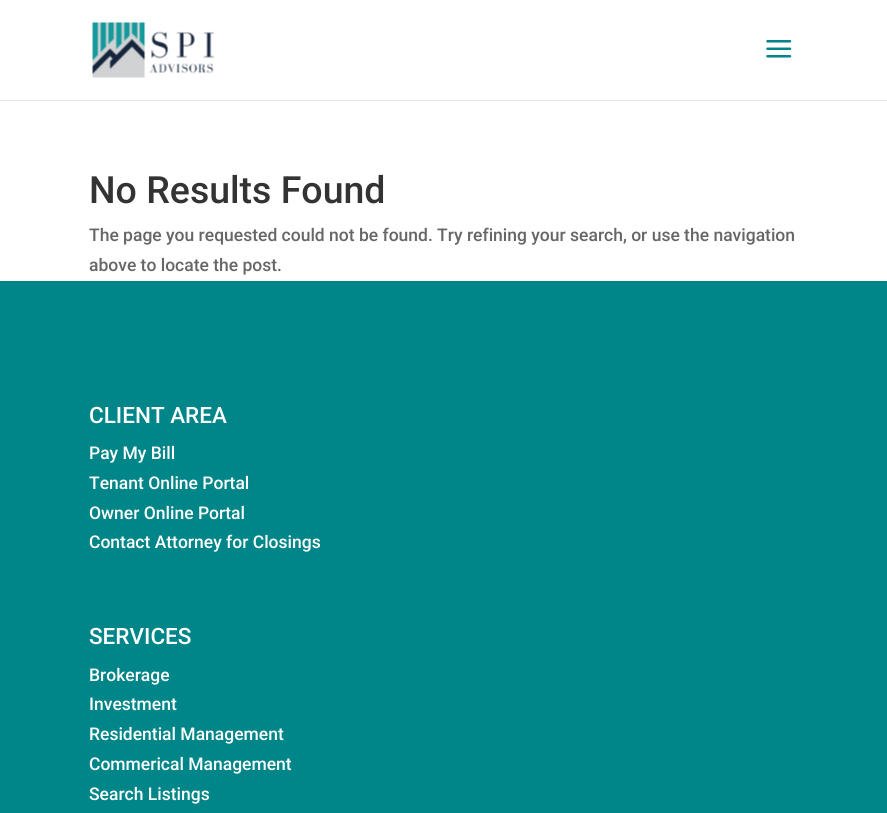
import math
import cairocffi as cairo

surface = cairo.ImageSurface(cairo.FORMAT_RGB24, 887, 813)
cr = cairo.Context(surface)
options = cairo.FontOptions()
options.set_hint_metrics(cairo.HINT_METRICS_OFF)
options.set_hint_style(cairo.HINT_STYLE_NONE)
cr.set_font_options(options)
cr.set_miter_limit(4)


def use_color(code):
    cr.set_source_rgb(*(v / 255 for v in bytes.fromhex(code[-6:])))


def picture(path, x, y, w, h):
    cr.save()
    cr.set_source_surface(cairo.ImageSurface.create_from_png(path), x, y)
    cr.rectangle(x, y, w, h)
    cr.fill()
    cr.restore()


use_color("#008589")
cr.paint()
use_color("#e6e6e6")
cr.new_path()
cr.move_to(0, 100)
cr.line_to(0, 101)
cr.line_to(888, 101)
cr.line_to(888, 1)
cr.line_to(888, 100)
cr.close_path()
cr.fill()
use_color("#ffffff")
cr.rectangle(0, 0, 887, 100)
cr.fill()
picture("img1.png", 92, 22, 123, 56)
picture("img2.png", 766, 40, 26, 18)
cr.rectangle(0, 101, 887, 180)
cr.fill()
cr.select_font_face("Roboto Medium")
cr.set_font_size(37.5)
use_color("#333333")
cr.move_to(89, 203)
cr.show_text("No Results Found")
cr.set_font_size(17.5)
use_color("#666666")
cr.move_to(89, 241)
cr.show_text("The page you requested could not be found. Try refining your search, or use the navigation")
cr.move_to(89, 271)
cr.show_text("above to locate the post.")
cr.set_font_size(22.5)
use_color("#ffffff")
cr.move_to(89, 423)
cr.show_text("CLIENT AREA")
cr.set_font_size(17.5)
cr.move_to(89, 459)
cr.show_text("Pay My Bill")
cr.move_to(89, 489)
cr.show_text("Tenant Online Portal")
cr.move_to(89, 519)
cr.show_text("Owner Online Portal")
cr.move_to(89, 548)
cr.show_text("Contact Attorney for Closings")
cr.set_font_size(22.5)
cr.move_to(89, 644)
cr.show_text("SERVICES")
cr.set_font_size(17.5)
cr.move_to(89, 681)
cr.show_text("Brokerage")
cr.move_to(89, 710)
cr.show_text("Investment")
cr.move_to(89, 740)
cr.show_text("Residential Management")
cr.move_to(89, 770)
cr.show_text("Commerical Management")
cr.move_to(89, 800)
cr.show_text("Search Listings")
surface.write_to_png("result.png")
